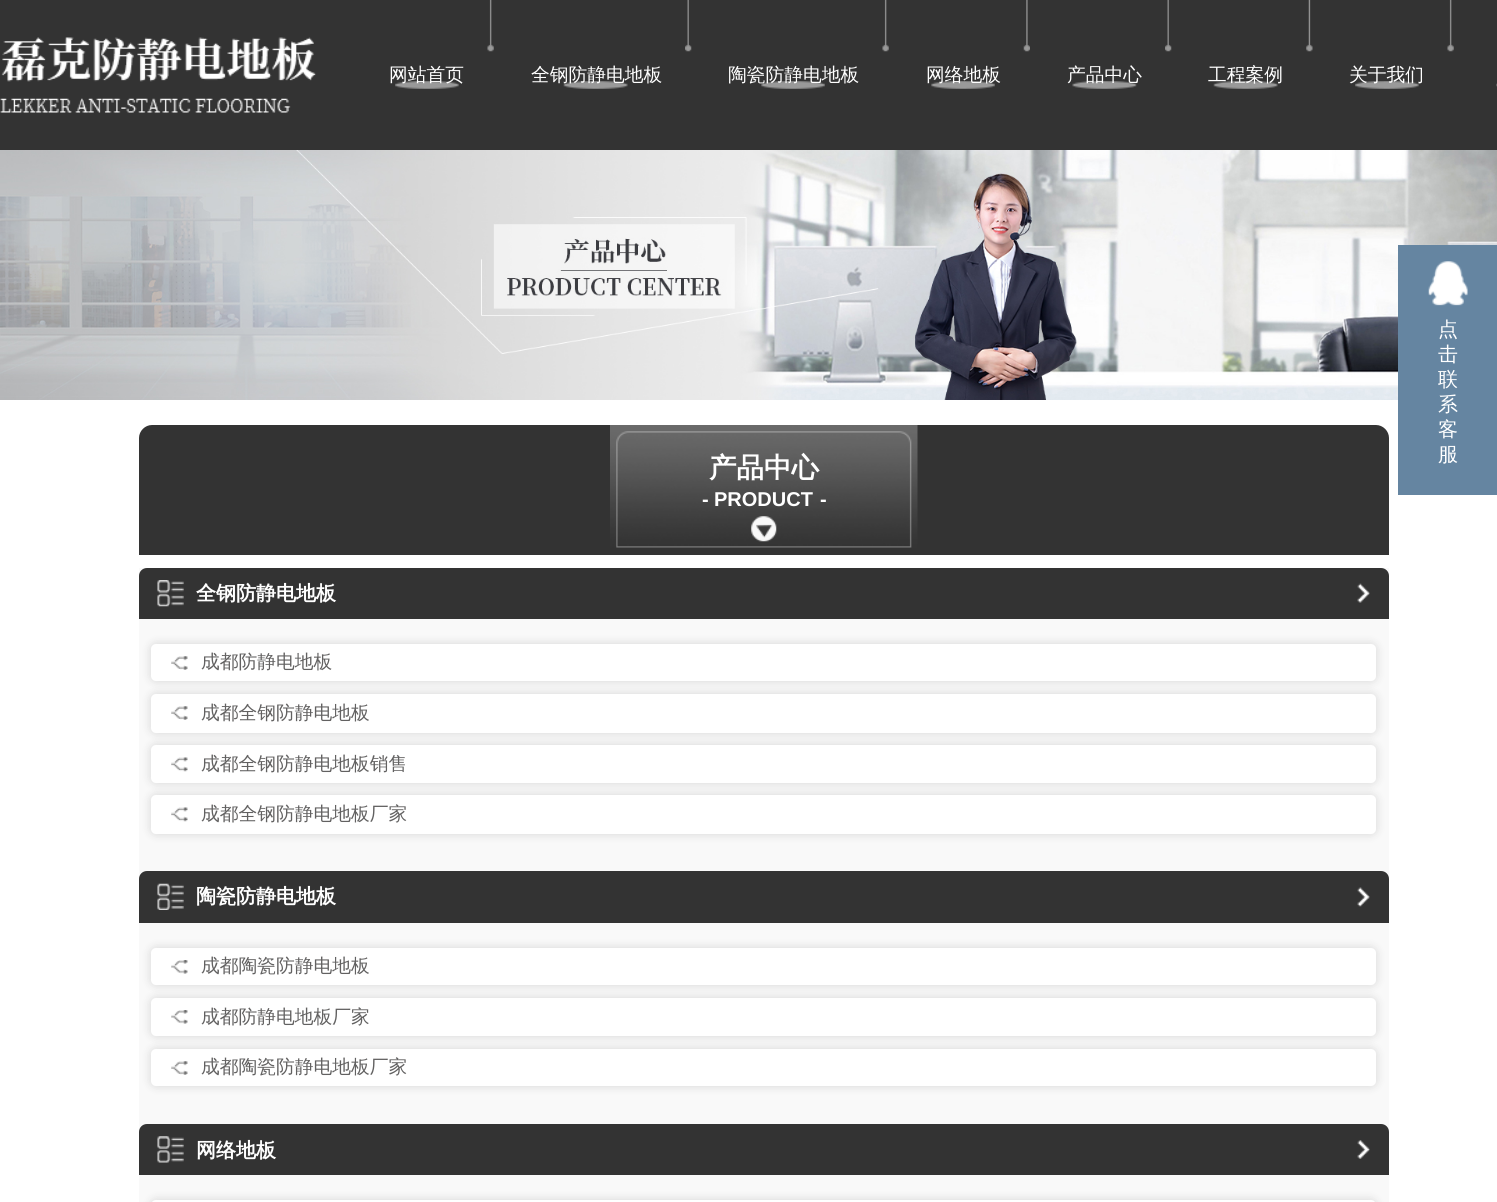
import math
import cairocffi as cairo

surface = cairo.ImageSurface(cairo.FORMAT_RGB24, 1497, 1202)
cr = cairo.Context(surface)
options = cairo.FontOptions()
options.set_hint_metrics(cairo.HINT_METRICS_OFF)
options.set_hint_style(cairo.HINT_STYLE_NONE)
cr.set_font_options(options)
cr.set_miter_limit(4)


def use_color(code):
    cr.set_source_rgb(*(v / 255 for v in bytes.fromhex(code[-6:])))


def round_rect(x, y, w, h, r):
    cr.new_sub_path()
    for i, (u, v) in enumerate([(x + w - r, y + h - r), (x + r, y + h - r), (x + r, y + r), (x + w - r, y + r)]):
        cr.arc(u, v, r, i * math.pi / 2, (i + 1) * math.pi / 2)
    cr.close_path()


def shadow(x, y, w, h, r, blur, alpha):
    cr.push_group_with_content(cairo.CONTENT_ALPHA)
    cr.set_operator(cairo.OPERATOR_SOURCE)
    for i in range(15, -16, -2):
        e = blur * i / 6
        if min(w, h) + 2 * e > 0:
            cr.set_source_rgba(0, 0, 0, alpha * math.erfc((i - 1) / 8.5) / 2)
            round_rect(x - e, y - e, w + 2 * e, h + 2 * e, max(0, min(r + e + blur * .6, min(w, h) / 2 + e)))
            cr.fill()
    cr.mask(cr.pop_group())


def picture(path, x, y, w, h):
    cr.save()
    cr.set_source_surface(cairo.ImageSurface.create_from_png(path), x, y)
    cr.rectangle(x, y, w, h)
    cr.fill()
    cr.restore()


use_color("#ffffff")
cr.paint()
use_color("#333333")
cr.rectangle(0, 0, 1497, 150)
cr.fill()
picture("img1.png", 0, 37, 316, 76)
picture("img2.png", 487, 0, 7, 52)
picture("img3.png", 395, 81, 64, 8)
cr.select_font_face("WenQuanYi Zen Hei Medium")
cr.set_font_size(18.75)
use_color("#ffffff")
cr.move_to(389, 81)
cr.show_text("网站首页")
picture("img4.png", 685, 0, 7, 52)
picture("img5.png", 563, 81, 65, 8)
cr.move_to(531, 81)
cr.show_text("全钢防静电地板")
picture("img2.png", 882, 0, 7, 52)
picture("img6.png", 761, 81, 64, 8)
cr.move_to(728, 81)
cr.show_text("陶瓷防静电地板")
picture("img7.png", 1023, 0, 7, 52)
picture("img6.png", 931, 81, 64, 8)
cr.move_to(926, 81)
cr.show_text("网络地板")
picture("img4.png", 1165, 0, 7, 52)
picture("img8.png", 1072, 81, 65, 8)
cr.move_to(1067, 81)
cr.show_text("产品中心")
picture("img9.png", 1306, 0, 7, 52)
picture("img10.png", 1213, 81, 65, 8)
cr.move_to(1208, 81)
cr.show_text("工程案例")
picture("img2.png", 1447, 0, 7, 52)
picture("img3.png", 1355, 81, 64, 8)
cr.move_to(1349, 81)
cr.show_text("关于我们")
picture("img11.png", 1496, 83, 1, 4)
picture("img12.png", 0, 150, 1497, 250)
use_color("#6585a1")
cr.rectangle(1398, 245, 99, 250)
cr.fill()
picture("img13.png", 1428, 261, 40, 45)
cr.set_font_size(20)
use_color("#ffffff")
cr.move_to(1438, 336)
cr.show_text("点")
cr.move_to(1438, 361)
cr.show_text("击")
cr.move_to(1438, 386)
cr.show_text("联")
cr.move_to(1438, 411)
cr.show_text("系")
cr.move_to(1438, 436)
cr.show_text("客")
cr.move_to(1438, 461)
cr.show_text("服")
use_color("#333333")
cr.new_path()
cr.move_to(152, 425)
cr.line_to(1376, 425)
cr.curve_to(1383, 425, 1389, 431, 1389, 438)
cr.line_to(1389, 555)
cr.line_to(139, 555)
cr.line_to(139, 438)
cr.curve_to(139, 431, 145, 425, 152, 425)
cr.close_path()
cr.fill()
picture("img14.png", 610, 425, 308, 123)
cr.select_font_face("WenQuanYi Zen Hei", cairo.FONT_SLANT_NORMAL, cairo.FONT_WEIGHT_BOLD)
cr.set_font_size(27.5)
use_color("#ffffff")
cr.move_to(709, 477)
cr.show_text("产品中心")
cr.select_font_face("Liberation Sans", cairo.FONT_SLANT_NORMAL, cairo.FONT_WEIGHT_BOLD)
cr.set_font_size(20)
cr.move_to(702, 506)
cr.show_text("-")
cr.move_to(714, 506)
cr.show_text("PRODUCT")
cr.move_to(820, 506)
cr.show_text("-")
picture("img15.png", 751, 516, 26, 26)
use_color("#f9f9f9")
cr.rectangle(139, 568, 1250, 634)
cr.fill()
use_color("#333333")
cr.new_path()
cr.move_to(147, 568)
cr.line_to(1381, 568)
cr.curve_to(1385.5, 568, 1389, 571.5, 1389, 576)
cr.line_to(1389, 619)
cr.line_to(139, 619)
cr.line_to(139, 576)
cr.curve_to(139, 571.5, 142.5, 568, 147, 568)
cr.close_path()
cr.fill()
picture("img16.png", 157, 580, 27, 27)
cr.select_font_face("WenQuanYi Zen Hei", cairo.FONT_SLANT_NORMAL, cairo.FONT_WEIGHT_BOLD)
use_color("#ffffff")
cr.move_to(196, 600)
cr.show_text("全钢防静电地板")
picture("img17.png", 1357, 583, 13, 20)
use_color("#000000")
shadow(151, 644, 1225, 37, 5, 5, 0.14)
use_color("#ffffff")
round_rect(151, 644, 1225, 37, 5)
cr.fill()
picture("img18.png", 171, 656, 17, 14)
cr.select_font_face("WenQuanYi Zen Hei Medium")
cr.set_font_size(18.75)
use_color("#626161")
cr.move_to(201, 668)
cr.show_text("成都防静电地板")
use_color("#000000")
shadow(151, 694, 1225, 39, 5, 5, 0.14)
use_color("#ffffff")
round_rect(151, 694, 1225, 39, 5)
cr.fill()
picture("img18.png", 171, 706, 17, 14)
use_color("#626161")
cr.move_to(201, 719)
cr.show_text("成都全钢防静电地板")
use_color("#000000")
shadow(151, 745, 1225, 38, 5, 5, 0.14)
use_color("#ffffff")
round_rect(151, 745, 1225, 38, 5)
cr.fill()
picture("img19.png", 171, 757, 17, 15)
use_color("#626161")
cr.move_to(201, 770)
cr.show_text("成都全钢防静电地板销售")
use_color("#000000")
shadow(151, 795, 1225, 39, 5, 5, 0.14)
use_color("#ffffff")
round_rect(151, 795, 1225, 39, 5)
cr.fill()
picture("img19.png", 171, 807, 17, 15)
use_color("#626161")
cr.move_to(201, 820)
cr.show_text("成都全钢防静电地板厂家")
use_color("#333333")
cr.new_path()
cr.move_to(147, 871)
cr.line_to(1381, 871)
cr.curve_to(1385.5, 871, 1389, 874.5, 1389, 879)
cr.line_to(1389, 923)
cr.line_to(139, 923)
cr.line_to(139, 879)
cr.curve_to(139, 874.5, 142.5, 871, 147, 871)
cr.close_path()
cr.fill()
picture("img20.png", 157, 883, 27, 27)
cr.select_font_face("WenQuanYi Zen Hei", cairo.FONT_SLANT_NORMAL, cairo.FONT_WEIGHT_BOLD)
cr.set_font_size(20)
use_color("#ffffff")
cr.move_to(196, 903)
cr.show_text("陶瓷防静电地板")
picture("img21.png", 1357, 887, 13, 20)
use_color("#000000")
shadow(151, 948, 1225, 37, 5, 5, 0.14)
use_color("#ffffff")
round_rect(151, 948, 1225, 37, 5)
cr.fill()
picture("img22.png", 171, 960, 17, 14)
cr.select_font_face("WenQuanYi Zen Hei Medium")
cr.set_font_size(18.75)
use_color("#626161")
cr.move_to(201, 972)
cr.show_text("成都陶瓷防静电地板")
use_color("#000000")
shadow(151, 998, 1225, 38, 5, 5, 0.14)
use_color("#ffffff")
round_rect(151, 998, 1225, 38, 5)
cr.fill()
picture("img22.png", 171, 1010, 17, 14)
use_color("#626161")
cr.move_to(201, 1023)
cr.show_text("成都防静电地板厂家")
use_color("#000000")
shadow(151, 1049, 1225, 37, 5, 5, 0.14)
use_color("#ffffff")
round_rect(151, 1049, 1225, 37, 5)
cr.fill()
picture("img18.png", 171, 1061, 17, 14)
use_color("#626161")
cr.move_to(201, 1073)
cr.show_text("成都陶瓷防静电地板厂家")
use_color("#333333")
cr.new_path()
cr.move_to(147, 1124)
cr.line_to(1381, 1124)
cr.curve_to(1385.5, 1124, 1389, 1127.5, 1389, 1132)
cr.line_to(1389, 1175)
cr.line_to(139, 1175)
cr.line_to(139, 1132)
cr.curve_to(139, 1127.5, 142.5, 1124, 147, 1124)
cr.close_path()
cr.fill()
picture("img23.png", 157, 1136, 27, 27)
cr.select_font_face("WenQuanYi Zen Hei", cairo.FONT_SLANT_NORMAL, cairo.FONT_WEIGHT_BOLD)
cr.set_font_size(20)
use_color("#ffffff")
cr.move_to(196, 1157)
cr.show_text("网络地板")
picture("img24.png", 1357, 1140, 13, 19)
use_color("#000000")
shadow(151, 1200, 1225, 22, 5, 5, 0.14)
use_color("#ffffff")
round_rect(151, 1200, 1225, 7, 5)
cr.fill()
surface.write_to_png("result.png")
